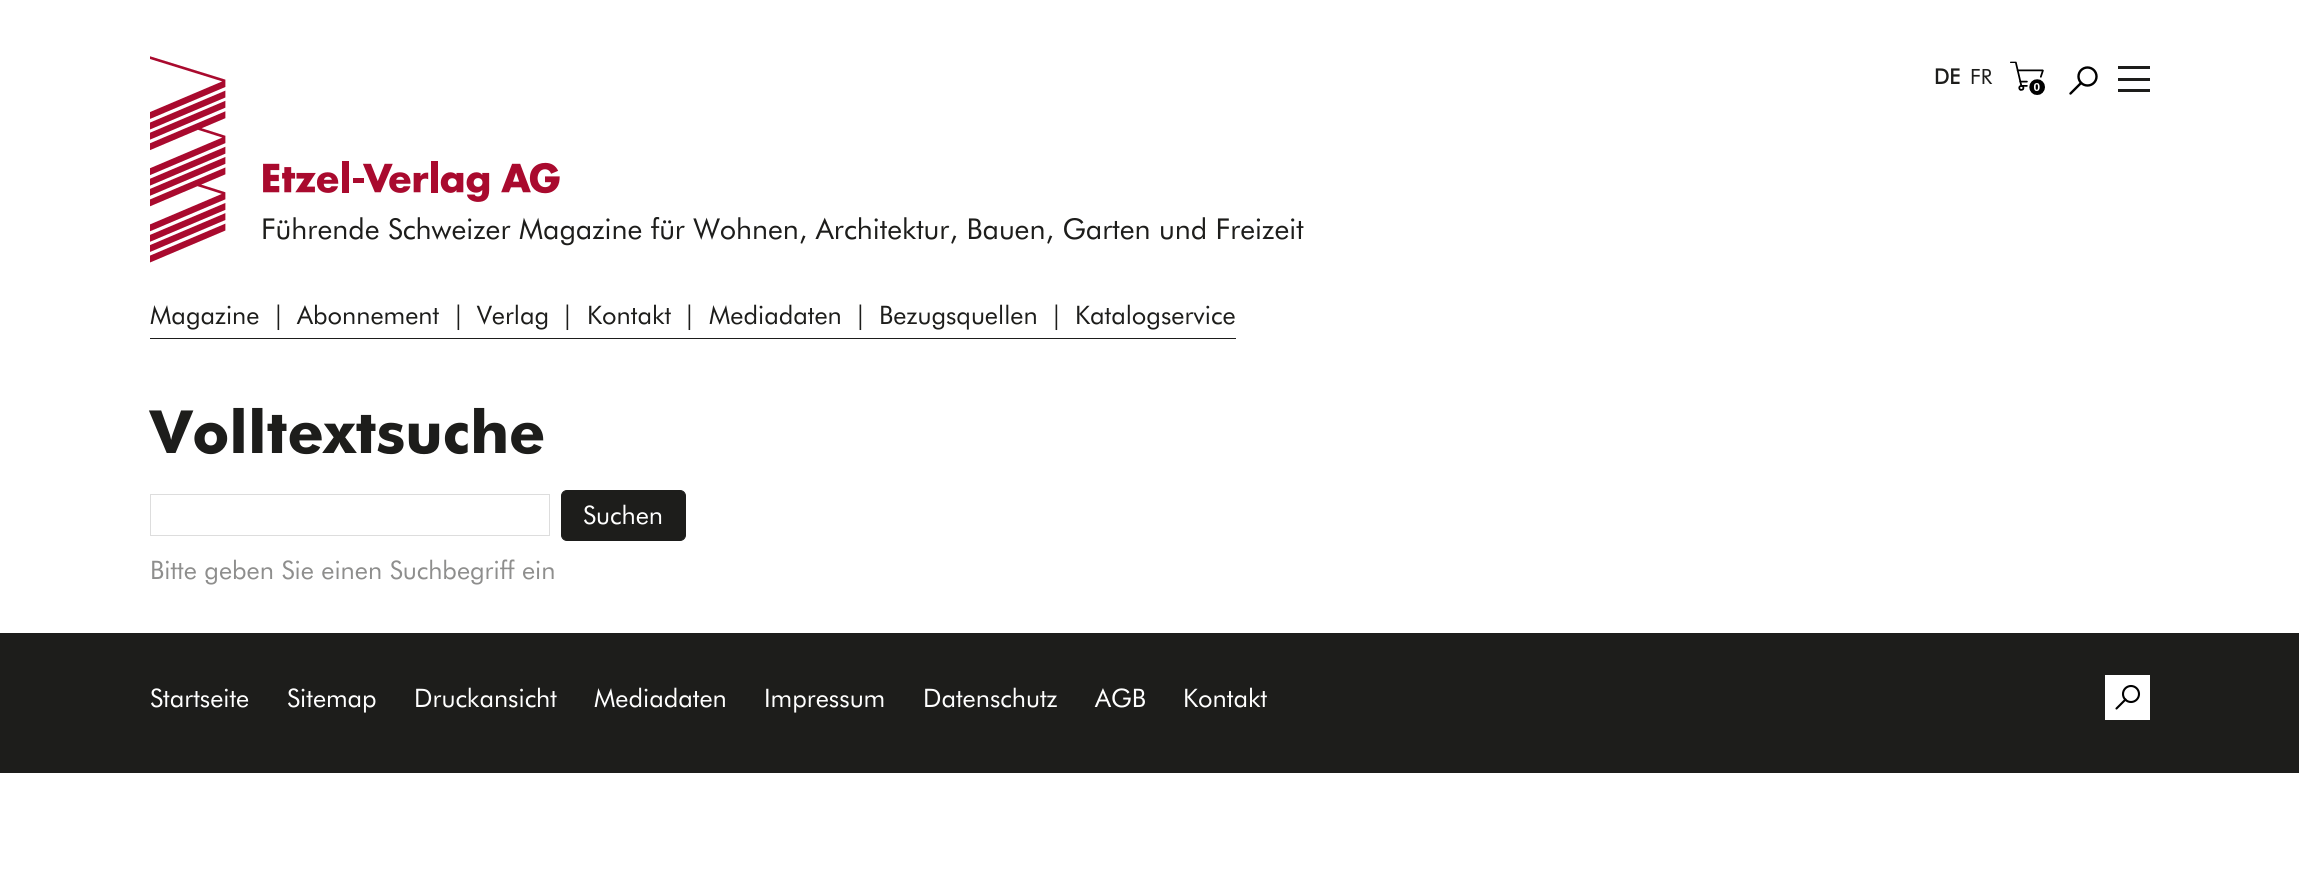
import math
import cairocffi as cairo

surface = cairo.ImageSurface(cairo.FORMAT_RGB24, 2299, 887)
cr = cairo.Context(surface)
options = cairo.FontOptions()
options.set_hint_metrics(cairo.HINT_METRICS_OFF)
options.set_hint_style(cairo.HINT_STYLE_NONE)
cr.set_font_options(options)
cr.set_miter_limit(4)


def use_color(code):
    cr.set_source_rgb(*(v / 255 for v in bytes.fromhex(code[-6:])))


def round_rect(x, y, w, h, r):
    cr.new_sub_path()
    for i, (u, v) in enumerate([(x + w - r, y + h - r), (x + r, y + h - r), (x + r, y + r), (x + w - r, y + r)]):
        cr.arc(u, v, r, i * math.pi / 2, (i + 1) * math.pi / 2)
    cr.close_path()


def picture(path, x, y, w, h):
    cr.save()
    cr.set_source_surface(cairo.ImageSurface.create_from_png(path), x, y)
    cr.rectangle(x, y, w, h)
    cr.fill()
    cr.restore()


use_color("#ffffff")
cr.paint()
picture("img1.png", 150, 56, 410, 207)
cr.select_font_face("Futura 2", cairo.FONT_SLANT_NORMAL, cairo.FONT_WEIGHT_BOLD)
cr.set_font_size(21)
use_color("#1d1d1b")
cr.move_to(1934, 84)
cr.show_text("DE")
cr.select_font_face("Futura")
cr.move_to(1970, 84)
cr.show_text("FR")
picture("img2.png", 2010, 61, 35, 34)
cr.arc(2087.5, 76.5, 9, 0, 2 * math.pi)
use_color("#000000")
cr.set_line_width(2.4)
cr.stroke()
cr.new_path()
cr.move_to(2081, 83)
cr.line_to(2070.5, 93.5)
cr.set_line_cap(cairo.LINE_CAP_ROUND)
cr.set_line_join(cairo.LINE_JOIN_ROUND)
cr.stroke()
use_color("#1d1d1b")
cr.rectangle(2118, 66, 32, 3)
cr.fill()
cr.rectangle(2118, 78, 32, 3)
cr.fill()
cr.rectangle(2118, 89, 32, 3)
cr.fill()
cr.set_font_size(28.75)
cr.move_to(261, 239)
cr.show_text("Führende Schweizer Magazine für Wohnen, Architektur, Bauen, Garten und Freizeit")
cr.rectangle(150, 338, 1086, 1)
cr.fill()
cr.set_font_size(25.5)
cr.move_to(150, 324)
cr.show_text("Magazine")
cr.move_to(272, 324)
cr.show_text("|")
cr.move_to(297, 324)
cr.show_text("Abonnement")
cr.move_to(452, 324)
cr.show_text("|")
cr.move_to(477, 324)
cr.show_text("Verlag")
cr.move_to(561, 324)
cr.show_text("|")
cr.move_to(587, 324)
cr.show_text("Kontakt")
cr.move_to(683, 324)
cr.show_text("|")
cr.move_to(709, 324)
cr.show_text("Mediadaten")
cr.move_to(854, 324)
cr.show_text("|")
cr.move_to(879, 324)
cr.show_text("Bezugsquellen")
cr.move_to(1050, 324)
cr.show_text("|")
cr.move_to(1075, 324)
cr.show_text("Katalogservice")
cr.select_font_face("Futura", cairo.FONT_SLANT_NORMAL, cairo.FONT_WEIGHT_BOLD)
cr.set_font_size(59.5)
cr.move_to(150, 453)
cr.show_text("Volltextsuche")
cr.rectangle(150.5, 494.5, 399, 41)
use_color("#dddddd")
cr.set_line_width(1)
cr.set_line_cap(cairo.LINE_CAP_BUTT)
cr.set_line_join(cairo.LINE_JOIN_MITER)
cr.stroke()
use_color("#1d1d1b")
round_rect(561.5, 490.5, 124, 50, 5.5)
cr.fill_preserve()
cr.stroke()
cr.select_font_face("Futura")
cr.set_font_size(25.5)
use_color("#ffffff")
cr.move_to(583, 524)
cr.show_text("Suchen")
use_color("#8e8e8d")
cr.move_to(150, 579)
cr.show_text("Bitte geben Sie einen Suchbegriff ein")
use_color("#1d1d1b")
cr.rectangle(0, 633, 2299, 140)
cr.fill()
use_color("#ffffff")
cr.move_to(150, 707)
cr.show_text("Startseite")
cr.move_to(287, 707)
cr.show_text("Sitemap")
cr.move_to(414, 707)
cr.show_text("Druckansicht")
cr.move_to(594, 707)
cr.show_text("Mediadaten")
cr.move_to(764, 707)
cr.show_text("Impressum")
cr.move_to(923, 707)
cr.show_text("Datenschutz")
cr.move_to(1095, 707)
cr.show_text("AGB")
cr.move_to(1183, 707)
cr.show_text("Kontakt")
cr.rectangle(2105, 675, 45, 45)
cr.fill()
cr.arc(2131, 694, 8, 0, 2 * math.pi)
use_color("#000000")
cr.set_line_width(2.1)
cr.stroke()
cr.new_path()
cr.move_to(2125.5, 699.5)
cr.line_to(2116.5, 708.5)
cr.set_line_cap(cairo.LINE_CAP_ROUND)
cr.set_line_join(cairo.LINE_JOIN_ROUND)
cr.stroke()
surface.write_to_png("result.png")
